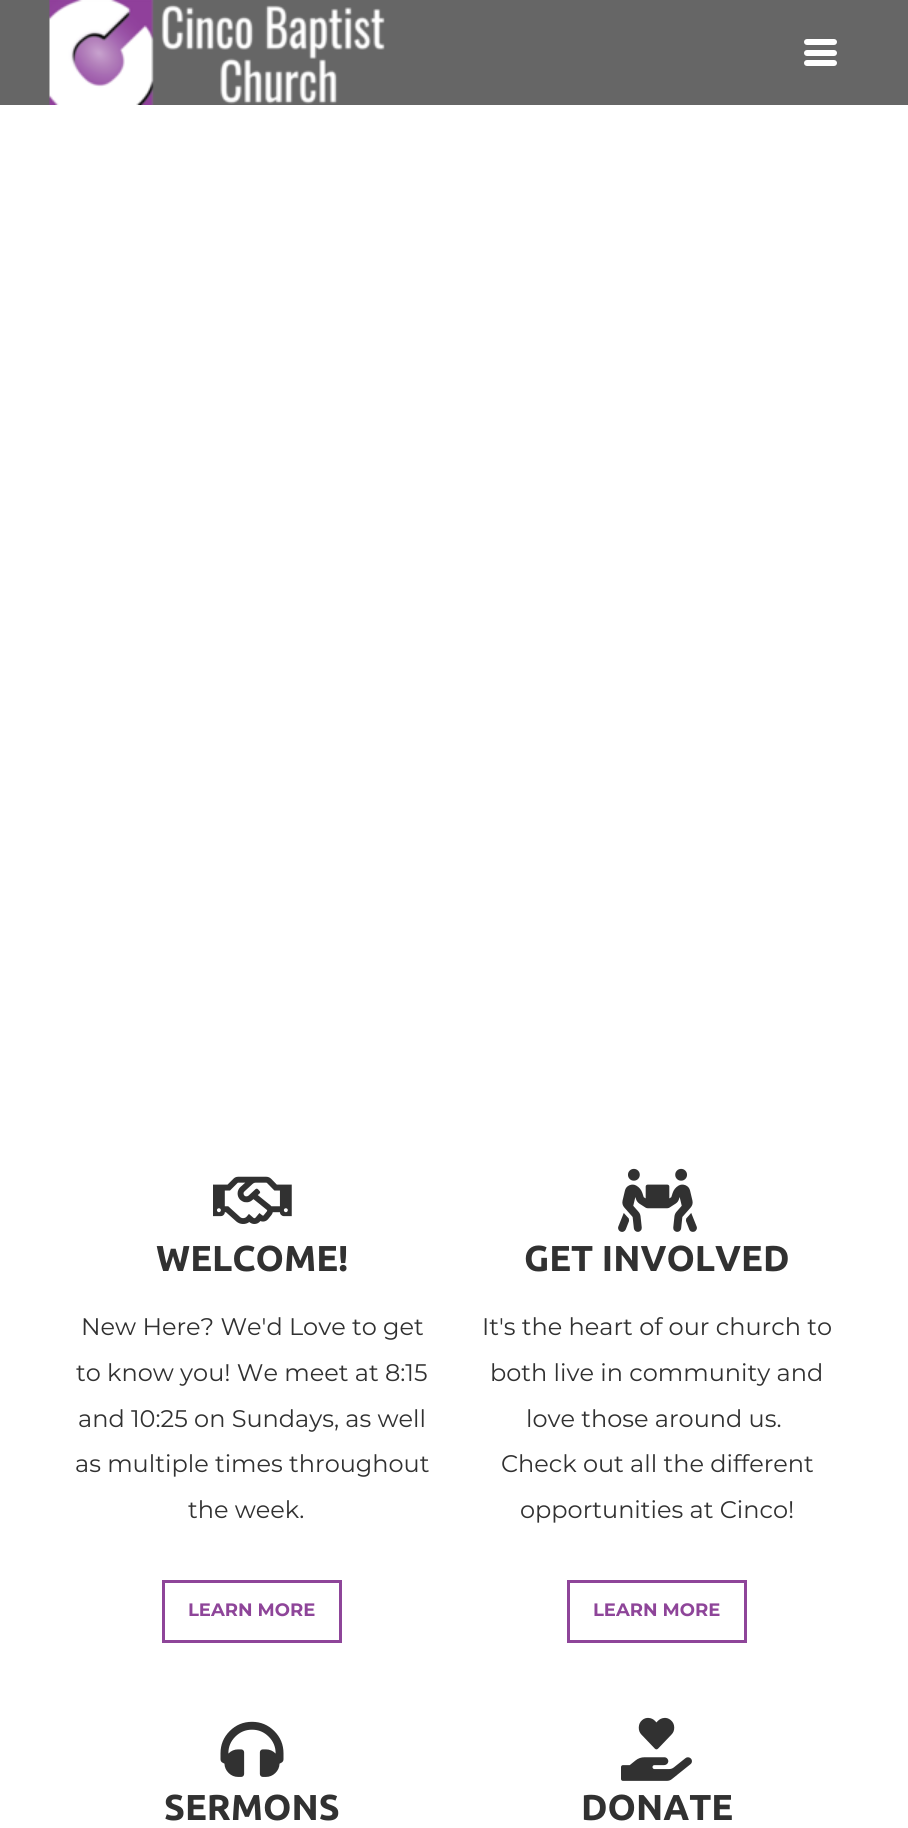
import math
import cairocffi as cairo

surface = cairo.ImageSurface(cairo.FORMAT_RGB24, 908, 1828)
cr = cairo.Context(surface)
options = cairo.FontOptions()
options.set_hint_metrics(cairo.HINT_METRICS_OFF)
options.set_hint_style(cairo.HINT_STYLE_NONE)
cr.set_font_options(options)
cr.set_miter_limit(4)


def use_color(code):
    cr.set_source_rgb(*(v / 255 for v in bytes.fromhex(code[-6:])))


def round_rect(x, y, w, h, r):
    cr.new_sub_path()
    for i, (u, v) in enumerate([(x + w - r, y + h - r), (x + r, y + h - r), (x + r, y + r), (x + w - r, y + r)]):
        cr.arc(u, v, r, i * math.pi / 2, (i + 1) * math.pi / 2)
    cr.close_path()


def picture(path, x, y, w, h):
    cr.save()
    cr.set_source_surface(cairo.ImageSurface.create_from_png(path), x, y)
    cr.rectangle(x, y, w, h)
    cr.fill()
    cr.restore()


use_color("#ffffff")
cr.paint()
use_color("#666666")
cr.rectangle(0, 0, 908, 105)
cr.fill()
picture("img1.png", 49, 0, 336, 105)
use_color("#ffffff")
round_rect(804, 39, 33, 6, 3)
cr.fill()
round_rect(804, 50, 33, 6, 3)
cr.fill()
round_rect(804, 60, 33, 6, 3)
cr.fill()
picture("img2.png", 213, 1176, 79, 48)
cr.select_font_face("Ubuntu", cairo.FONT_SLANT_NORMAL, cairo.FONT_WEIGHT_BOLD)
cr.set_font_size(36)
use_color("#313131")
cr.move_to(156, 1271)
cr.show_text("WELCOME!")
cr.select_font_face("Montserrat")
cr.set_font_size(24)
cr.move_to(81, 1335)
cr.show_text("New Here? We'd Love to get")
cr.move_to(76, 1381)
cr.show_text("to know you! We meet at 8:15")
cr.move_to(78, 1427)
cr.show_text("and 10:25 on Sundays, as well")
cr.move_to(75, 1472)
cr.show_text("as multiple times throughout")
cr.move_to(188, 1518)
cr.show_text("the week.")
cr.rectangle(163.5, 1581.5, 177, 60)
use_color("#8e4599")
cr.set_line_width(3)
cr.stroke()
cr.select_font_face("Montserrat", cairo.FONT_SLANT_NORMAL, cairo.FONT_WEIGHT_BOLD)
cr.set_font_size(18)
cr.move_to(188, 1616)
cr.show_text("LEARN MORE")
picture("img3.png", 618, 1168, 79, 64)
cr.select_font_face("Ubuntu", cairo.FONT_SLANT_NORMAL, cairo.FONT_WEIGHT_BOLD)
cr.set_font_size(36)
use_color("#313131")
cr.move_to(524, 1271)
cr.show_text("GET INVOLVED")
cr.select_font_face("Montserrat")
cr.set_font_size(24)
cr.move_to(482, 1335)
cr.show_text("It's the heart of our church to")
cr.move_to(490, 1381)
cr.show_text("both live in community and")
cr.move_to(526, 1427)
cr.show_text("love those around us.")
cr.move_to(501, 1472)
cr.show_text("Check out all the different")
cr.move_to(520, 1518)
cr.show_text("opportunities at Cinco!")
cr.rectangle(568.5, 1581.5, 177, 60)
use_color("#8e4599")
cr.stroke()
cr.select_font_face("Montserrat", cairo.FONT_SLANT_NORMAL, cairo.FONT_WEIGHT_BOLD)
cr.set_font_size(18)
cr.move_to(593, 1616)
cr.show_text("LEARN MORE")
picture("img4.png", 220, 1721, 64, 56)
cr.select_font_face("Ubuntu", cairo.FONT_SLANT_NORMAL, cairo.FONT_WEIGHT_BOLD)
cr.set_font_size(36)
use_color("#313131")
cr.move_to(164, 1820)
cr.show_text("SERMONS")
picture("img5.png", 621, 1717, 71, 64)
cr.move_to(581, 1820)
cr.show_text("DONATE")
surface.write_to_png("result.png")
